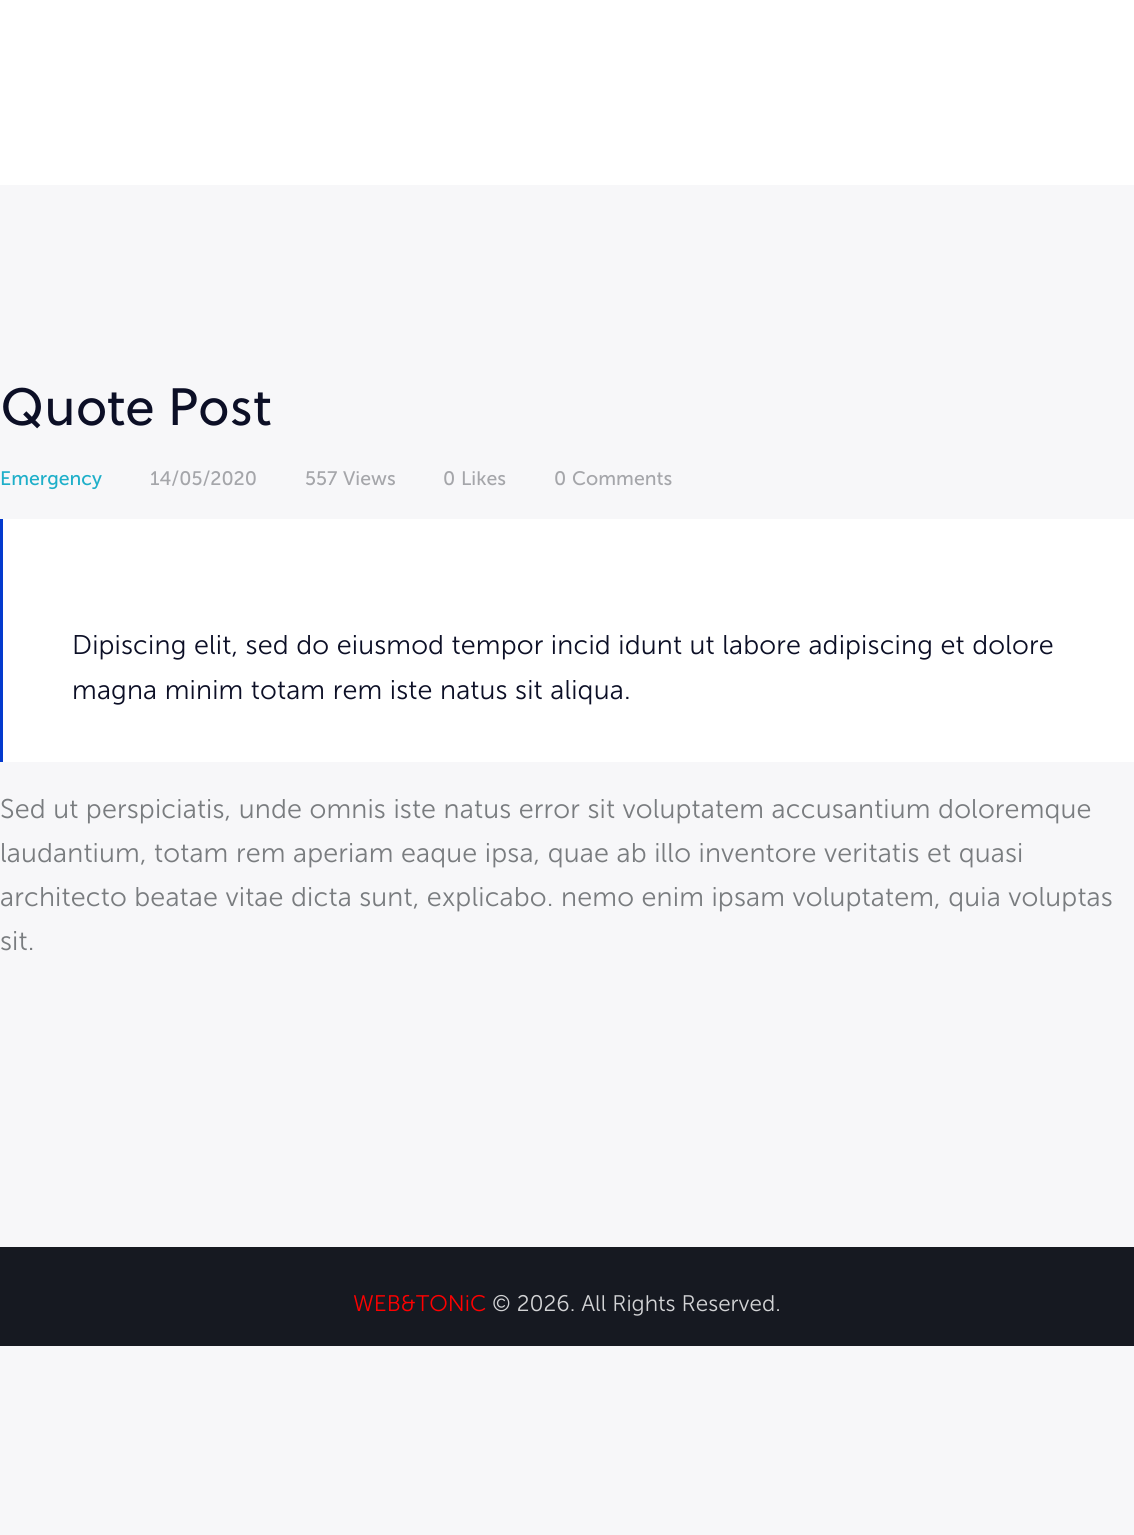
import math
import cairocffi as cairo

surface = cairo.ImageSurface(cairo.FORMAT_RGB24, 1134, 1535)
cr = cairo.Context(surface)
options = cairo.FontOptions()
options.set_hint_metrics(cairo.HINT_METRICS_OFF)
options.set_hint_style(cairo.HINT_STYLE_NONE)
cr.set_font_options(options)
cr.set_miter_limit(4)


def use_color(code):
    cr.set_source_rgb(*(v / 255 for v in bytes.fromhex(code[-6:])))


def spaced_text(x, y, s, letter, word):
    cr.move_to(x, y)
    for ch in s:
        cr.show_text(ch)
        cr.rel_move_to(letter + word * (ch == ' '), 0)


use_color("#f7f7f9")
cr.paint()
use_color("#ffffff")
cr.rectangle(0, 0, 1134, 185)
cr.fill()
cr.select_font_face("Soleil")
cr.set_font_size(52.5)
use_color("#0c0f26")
cr.move_to(0, 425)
cr.show_text("Quote Post")
cr.select_font_face("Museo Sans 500")
cr.set_font_size(19.5)
use_color("#1eafc9")
cr.move_to(0, 485)
cr.show_text("Emergency")
use_color("#a5a6aa")
cr.move_to(150, 485)
cr.show_text("14/05/2020")
cr.move_to(305, 485)
cr.show_text("557")
cr.move_to(343, 485)
cr.show_text("Views")
cr.move_to(443, 485)
cr.show_text("0")
cr.move_to(461, 485)
cr.show_text("Likes")
cr.move_to(554, 485)
cr.show_text("0")
cr.move_to(572, 485)
cr.show_text("Comments")
use_color("#ffffff")
cr.rectangle(3, 519, 1131, 243)
cr.fill()
use_color("#043ace")
cr.rectangle(0, 519, 3, 243)
cr.fill()
cr.select_font_face("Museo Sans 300 Light")
cr.set_font_size(27)
use_color("#0c0f26")
spaced_text(72, 654, "Dipiscing elit, sed do eiusmod tempor incid idunt ut labore adipiscing et dolore", 0.15, 0)
spaced_text(72, 699, "magna minim totam rem iste natus sit aliqua.", 0.15, 0)
use_color("#797c7f")
spaced_text(0, 818, "Sed ut perspiciatis, unde omnis iste natus error sit voluptatem accusantium doloremque", 0.15, 0)
spaced_text(0, 862, "laudantium, totam rem aperiam eaque ipsa, quae ab illo inventore veritatis et quasi", 0.15, 0)
spaced_text(0, 906, "architecto beatae vitae dicta sunt, explicabo. nemo enim ipsam voluptatem, quia voluptas", 0.15, 0)
spaced_text(0, 950, "sit.", 0.15, 0)
use_color("#161921")
cr.rectangle(0, 1247, 1134, 99)
cr.fill()
cr.set_font_size(22.5)
use_color("#ff0000")
cr.move_to(353, 1311)
cr.show_text("WEB&TONiC")
use_color("#d2d3d5")
cr.move_to(492, 1311)
cr.show_text("© 2026. All Rights Reserved.")
surface.write_to_png("result.png")
